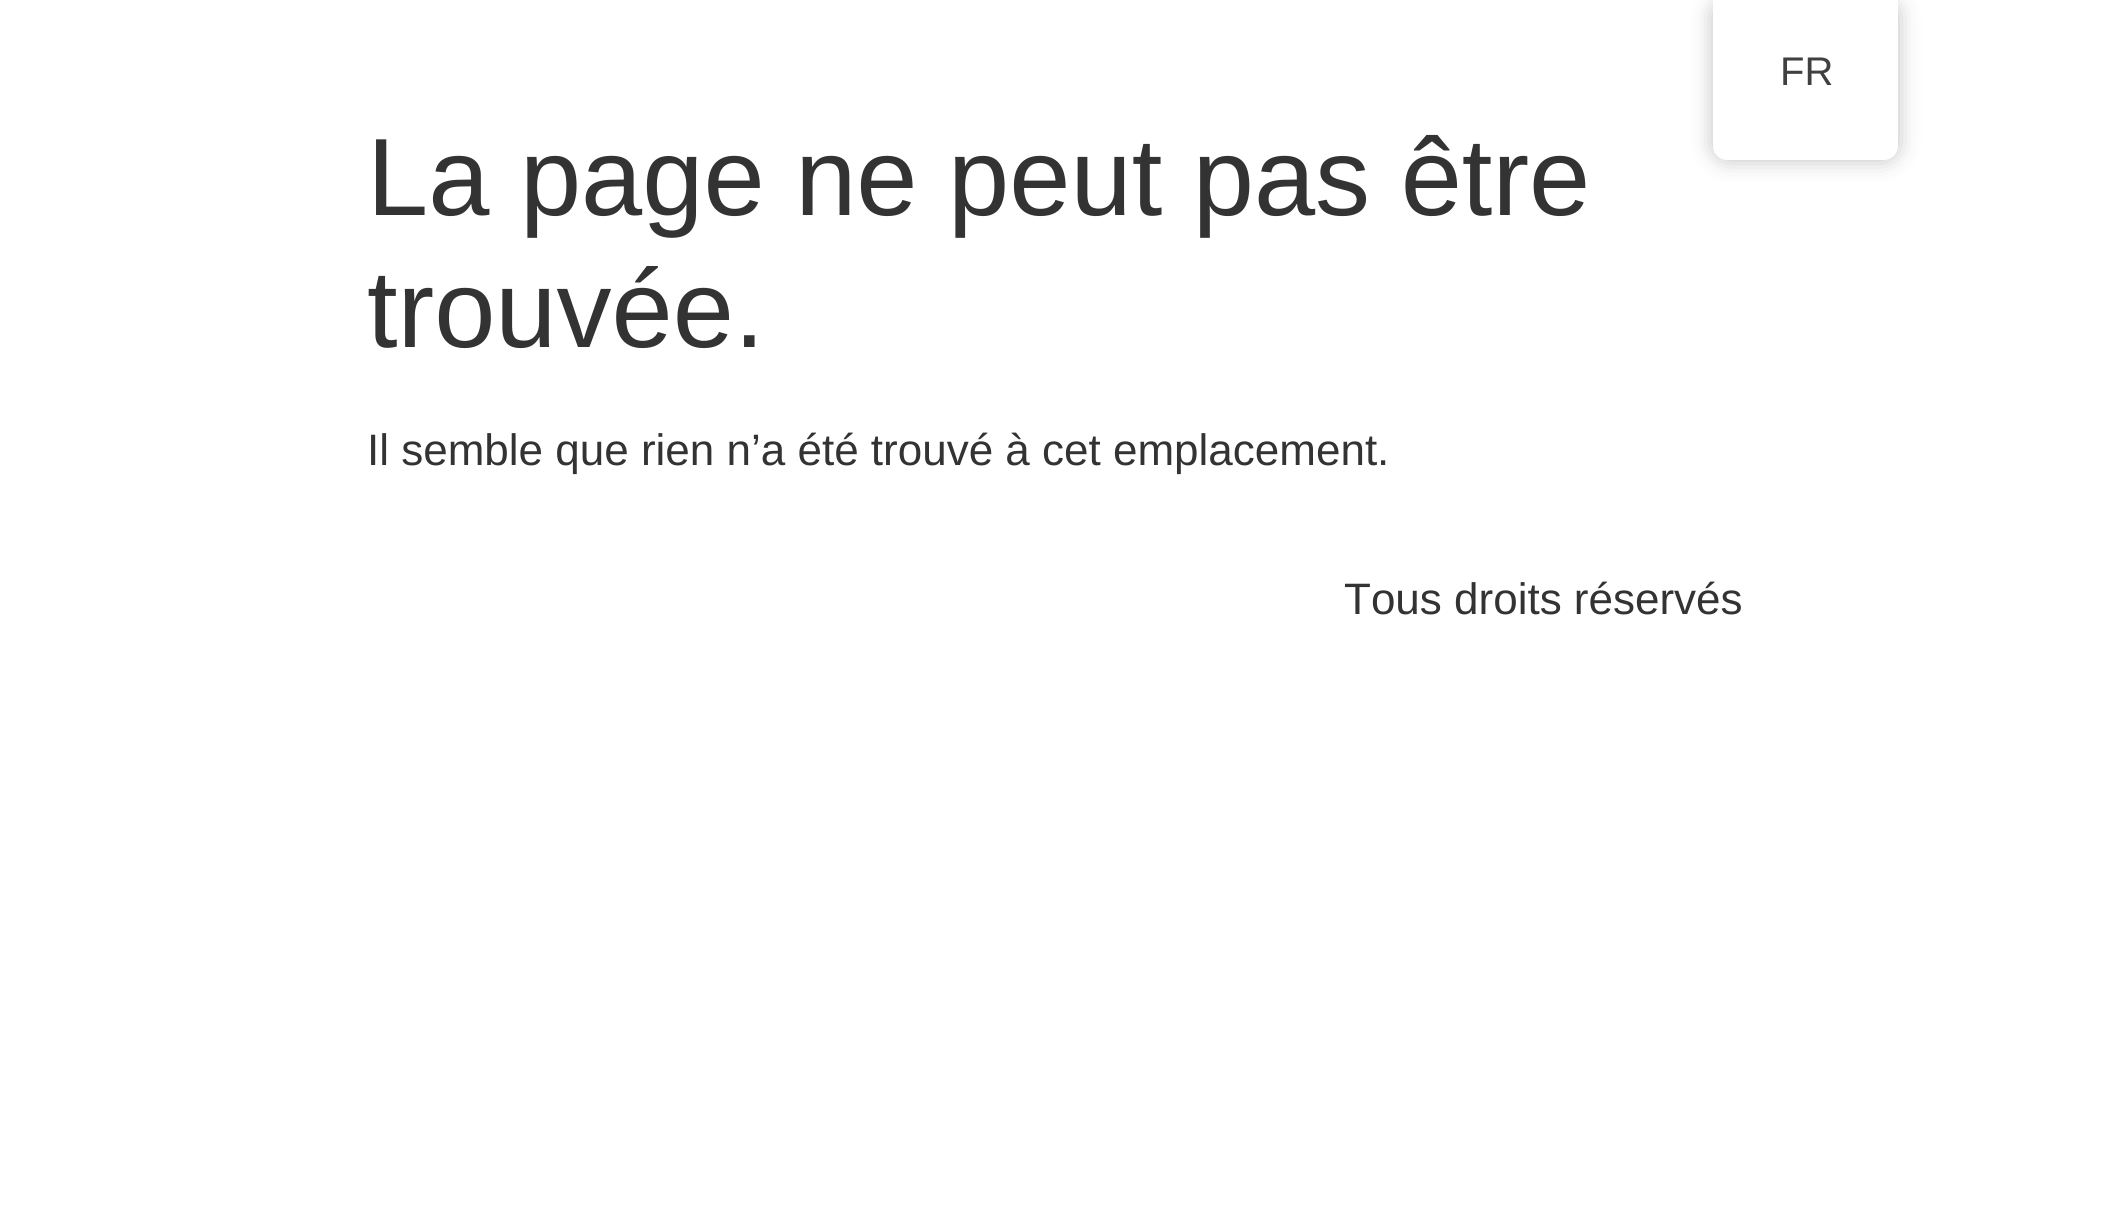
import math
import cairocffi as cairo

surface = cairo.ImageSurface(cairo.FORMAT_RGB24, 2107, 1207)
cr = cairo.Context(surface)
options = cairo.FontOptions()
options.set_hint_metrics(cairo.HINT_METRICS_OFF)
options.set_hint_style(cairo.HINT_STYLE_NONE)
cr.set_font_options(options)
cr.set_miter_limit(4)


def use_color(code):
    cr.set_source_rgb(*(v / 255 for v in bytes.fromhex(code[-6:])))


def round_rect(x, y, w, h, r):
    cr.new_sub_path()
    for i, (u, v) in enumerate([(x + w - r, y + h - r), (x + r, y + h - r), (x + r, y + r), (x + w - r, y + r)]):
        cr.arc(u, v, r, i * math.pi / 2, (i + 1) * math.pi / 2)
    cr.close_path()


def shadow(x, y, w, h, r, blur, alpha):
    cr.push_group_with_content(cairo.CONTENT_ALPHA)
    cr.set_operator(cairo.OPERATOR_SOURCE)
    for i in range(15, -16, -2):
        e = blur * i / 6
        if min(w, h) + 2 * e > 0:
            cr.set_source_rgba(0, 0, 0, alpha * math.erfc((i - 1) / 8.5) / 2)
            round_rect(x - e, y - e, w + 2 * e, h + 2 * e, max(0, min(r + e + blur * .6, min(w, h) / 2 + e)))
            cr.fill()
    cr.mask(cr.pop_group())


use_color("#ffffff")
cr.paint()
use_color("#000000")
shadow(1713, 0, 185, 160, 14, 11, 0.25)
use_color("#ffffff")
cr.new_path()
cr.move_to(1713, 0)
cr.line_to(1898, 0)
cr.line_to(1898, 146)
cr.curve_to(1898, 153.5, 1891.5, 160, 1884, 160)
cr.line_to(1727, 160)
cr.curve_to(1719.5, 160, 1713, 153.5, 1713, 146)
cr.close_path()
cr.fill()
cr.select_font_face("Liberation Sans")
cr.set_font_size(40)
use_color("#404040")
cr.move_to(1780, 85)
cr.show_text("FR")
cr.set_font_size(110)
use_color("#333333")
cr.move_to(367, 215)
cr.show_text("La page ne peut pas être")
cr.move_to(367, 347)
cr.show_text("trouvée.")
cr.set_font_size(44)
cr.move_to(367, 465)
cr.show_text("Il semble que rien n’a été trouvé à cet emplacement.")
cr.move_to(1344, 614)
cr.show_text("Tous droits réservés")
surface.write_to_png("result.png")
